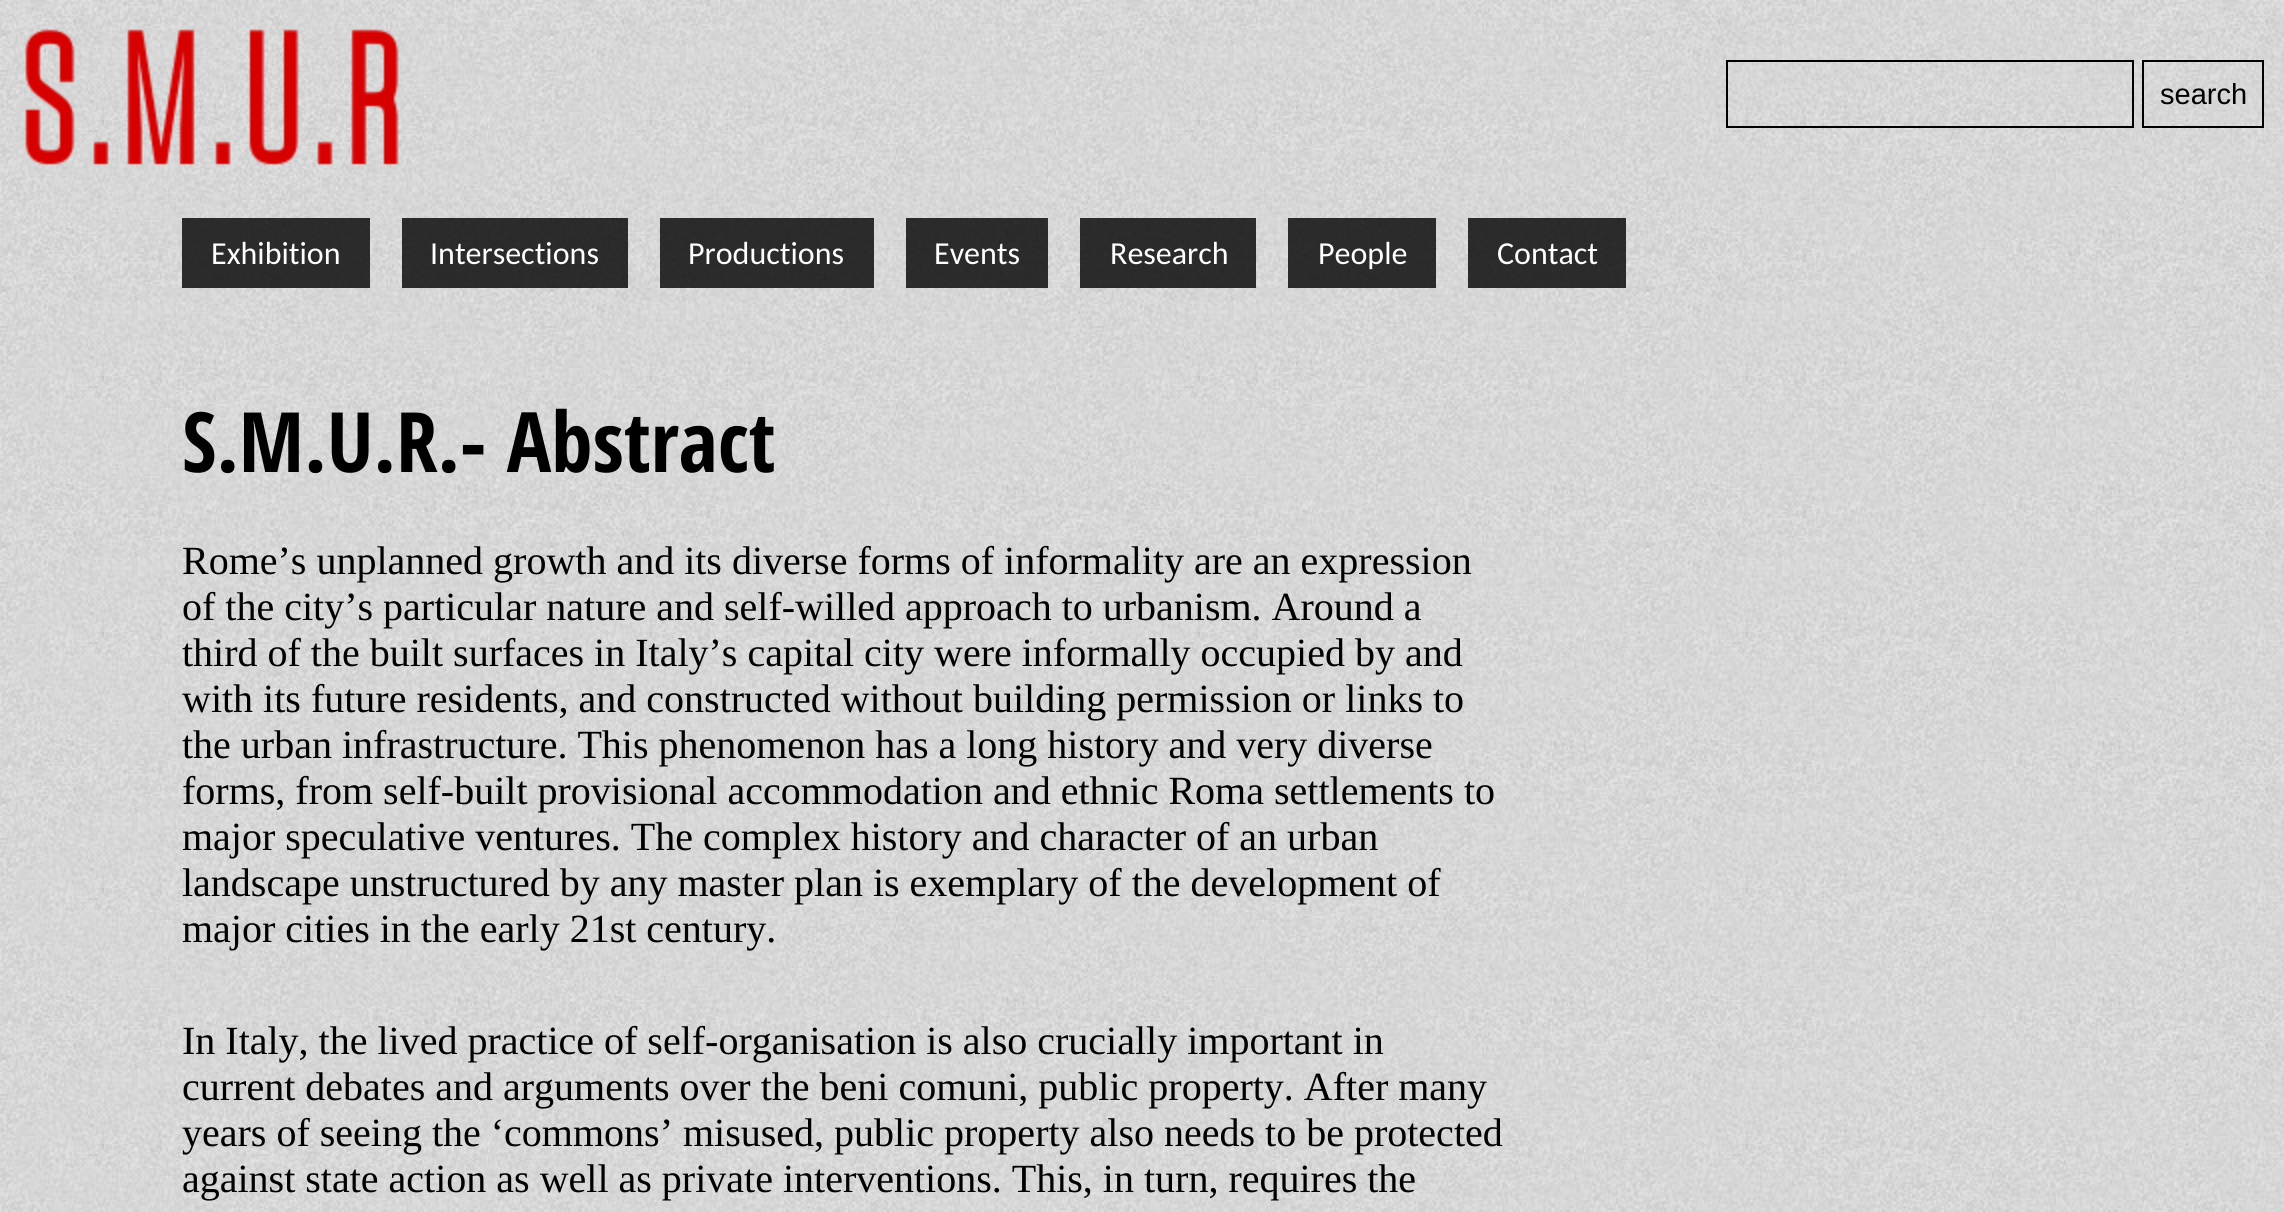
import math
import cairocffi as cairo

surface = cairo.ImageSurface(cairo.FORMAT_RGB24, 2284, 1212)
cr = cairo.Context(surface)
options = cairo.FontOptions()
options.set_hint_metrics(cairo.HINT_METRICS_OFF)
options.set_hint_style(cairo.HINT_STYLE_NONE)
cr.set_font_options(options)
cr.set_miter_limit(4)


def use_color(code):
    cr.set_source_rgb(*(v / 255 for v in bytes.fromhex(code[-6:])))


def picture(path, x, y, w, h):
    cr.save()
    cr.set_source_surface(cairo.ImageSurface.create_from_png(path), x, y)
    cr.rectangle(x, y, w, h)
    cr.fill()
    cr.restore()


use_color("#ffffff")
cr.paint()
picture("img1.png", 0, 0, 2284, 1212)
picture("img2.png", 25, 29, 374, 136)
cr.rectangle(1727, 61, 406, 66)
use_color("#000000")
cr.stroke()
cr.rectangle(2143, 61, 120, 66)
cr.stroke()
cr.select_font_face("Liberation Sans")
cr.set_font_size(29)
cr.move_to(2160, 104)
cr.show_text("search")
cr.set_source_rgba(0, 0, 0, 0.8)
cr.rectangle(182, 218, 188, 70)
cr.fill()
cr.select_font_face("Carlito")
cr.set_font_size(32)
use_color("#ffffff")
cr.move_to(211, 264)
cr.show_text("Exhibition")
cr.set_source_rgba(0, 0, 0, 0.8)
cr.rectangle(402, 218, 226, 70)
cr.fill()
use_color("#ffffff")
cr.move_to(430, 264)
cr.show_text("Intersections")
cr.set_source_rgba(0, 0, 0, 0.8)
cr.rectangle(660, 218, 214, 70)
cr.fill()
use_color("#ffffff")
cr.move_to(688, 264)
cr.show_text("Productions")
cr.set_source_rgba(0, 0, 0, 0.8)
cr.rectangle(906, 218, 142, 70)
cr.fill()
use_color("#ffffff")
cr.move_to(934, 264)
cr.show_text("Events")
cr.set_source_rgba(0, 0, 0, 0.8)
cr.rectangle(1080, 218, 176, 70)
cr.fill()
use_color("#ffffff")
cr.move_to(1110, 264)
cr.show_text("Research")
cr.set_source_rgba(0, 0, 0, 0.8)
cr.rectangle(1288, 218, 148, 70)
cr.fill()
use_color("#ffffff")
cr.move_to(1318, 264)
cr.show_text("People")
cr.set_source_rgba(0, 0, 0, 0.8)
cr.rectangle(1468, 218, 158, 70)
cr.fill()
use_color("#ffffff")
cr.move_to(1497, 264)
cr.show_text("Contact")
cr.select_font_face("Open Sans Condensed", cairo.FONT_SLANT_NORMAL, cairo.FONT_WEIGHT_BOLD)
cr.set_font_size(83.25)
use_color("#000000")
cr.move_to(182, 472)
cr.show_text("S.M.U.R.- Abstract")
cr.select_font_face("Liberation Serif")
cr.set_font_size(40)
cr.move_to(182, 574)
cr.show_text("Rome’s unplanned growth and its diverse forms of informality are an expression")
cr.move_to(182, 620)
cr.show_text("of the city’s particular nature and self-willed approach to urbanism. Around a")
cr.move_to(182, 666)
cr.show_text("third of the built surfaces in Italy’s capital city were informally occupied by and")
cr.move_to(182, 712)
cr.show_text("with its future residents, and constructed without building permission or links to")
cr.move_to(182, 758)
cr.show_text("the urban infrastructure. This phenomenon has a long history and very diverse")
cr.move_to(182, 804)
cr.show_text("forms, from self-built provisional accommodation and ethnic Roma settlements to")
cr.move_to(182, 850)
cr.show_text("major speculative ventures. The complex history and character of an urban")
cr.move_to(182, 896)
cr.show_text("landscape unstructured by any master plan is exemplary of the development of")
cr.move_to(182, 942)
cr.show_text("major cities in the early 21st century.")
cr.move_to(182, 1054)
cr.show_text("In Italy, the lived practice of self-organisation is also crucially important in")
cr.move_to(182, 1100)
cr.show_text("current debates and arguments over the beni comuni, public property. After many")
cr.move_to(182, 1146)
cr.show_text("years of seeing the ‘commons’ misused, public property also needs to be protected")
cr.move_to(182, 1192)
cr.show_text("against state action as well as private interventions. This, in turn, requires the")
surface.write_to_png("result.png")
